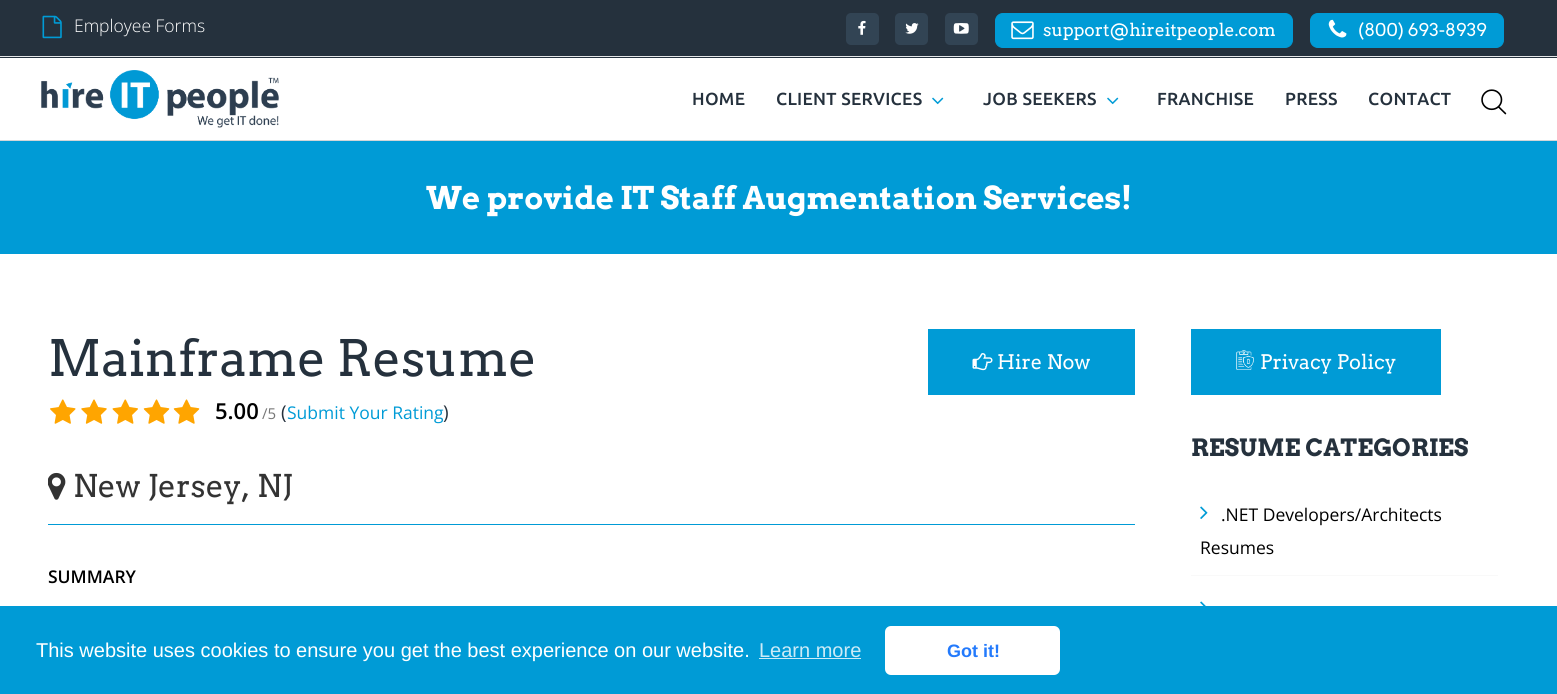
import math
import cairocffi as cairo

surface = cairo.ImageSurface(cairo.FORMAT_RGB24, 1557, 694)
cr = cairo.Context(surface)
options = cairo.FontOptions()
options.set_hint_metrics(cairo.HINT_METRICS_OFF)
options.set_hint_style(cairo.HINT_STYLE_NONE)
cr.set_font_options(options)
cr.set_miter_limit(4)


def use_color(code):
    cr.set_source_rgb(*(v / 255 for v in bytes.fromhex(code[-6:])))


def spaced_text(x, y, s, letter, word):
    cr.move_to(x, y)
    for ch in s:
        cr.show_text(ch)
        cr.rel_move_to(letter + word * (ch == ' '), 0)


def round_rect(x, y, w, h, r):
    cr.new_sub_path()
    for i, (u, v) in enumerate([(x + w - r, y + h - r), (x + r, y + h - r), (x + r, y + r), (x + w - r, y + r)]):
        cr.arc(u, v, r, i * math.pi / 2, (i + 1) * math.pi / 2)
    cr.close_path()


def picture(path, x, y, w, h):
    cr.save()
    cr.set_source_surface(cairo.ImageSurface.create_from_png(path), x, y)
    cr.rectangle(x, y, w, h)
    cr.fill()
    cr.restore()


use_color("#ffffff")
cr.paint()
use_color("#d3d6d8")
cr.rectangle(0, 140, 1557, 1)
cr.fill()
use_color("#25313d")
cr.rectangle(0, 0, 1557, 58)
cr.fill()
picture("img1.png", 42, 15, 20, 24)
cr.select_font_face("Open Sans Light")
cr.set_font_size(17.5)
use_color("#ffffff")
cr.move_to(74, 32)
cr.show_text("Employee Forms")
use_color("#324454")
round_rect(846, 13, 33, 32, 5)
cr.fill()
picture("img2.png", 858, 20, 8, 15)
round_rect(895, 13, 33, 32, 5)
cr.fill()
picture("img3.png", 905, 23, 14, 11)
round_rect(945, 13, 33, 32, 5)
cr.fill()
picture("img4.png", 953, 23, 16, 11)
use_color("#009bd6")
round_rect(995.5, 13.5, 297, 34, 7.5)
cr.fill_preserve()
cr.set_line_width(1)
cr.stroke()
picture("img5.png", 1011, 21, 23, 19)
cr.select_font_face("Arvo")
use_color("#ffffff")
cr.move_to(1043, 36)
cr.show_text("support@hireitpeople.com")
use_color("#009bd6")
round_rect(1310.5, 13.5, 193, 34, 7.5)
cr.fill_preserve()
cr.stroke()
picture("img6.png", 1328, 19, 19, 19)
use_color("#ffffff")
cr.move_to(1358, 36)
cr.show_text("(800) 693-8939")
use_color("#e5e7e9")
cr.rectangle(0, 56, 1557, 1)
cr.fill()
picture("img7.png", 41, 70, 238, 58)
cr.select_font_face("Ubuntu Medium")
use_color("#25313d")
spaced_text(692, 105, "HOME", 0.3, 0)
spaced_text(776, 105, "CLIENT SERVICES", 0.3, 0)
picture("img8.png", 932, 97, 12, 8)
spaced_text(983, 105, "JOB SEEKERS", 0.3, 0)
picture("img8.png", 1107, 97, 12, 8)
spaced_text(1157, 105, "FRANCHISE", 0.3, 0)
spaced_text(1285, 105, "PRESS", 0.3, 0)
spaced_text(1368, 105, "CONTACT", 0.3, 0)
picture("img9.png", 1481, 89, 26, 26)
use_color("#009bd6")
cr.rectangle(0, 141, 1557, 113)
cr.fill()
cr.select_font_face("Arvo", cairo.FONT_SLANT_NORMAL, cairo.FONT_WEIGHT_BOLD)
cr.set_font_size(31.25)
use_color("#ffffff")
cr.move_to(426, 209)
cr.show_text("We provide IT Staff Augmentation Services!")
use_color("#009bd6")
cr.rectangle(48, 524, 1087, 1)
cr.fill()
cr.select_font_face("Arvo")
cr.set_font_size(50)
use_color("#25313d")
cr.move_to(48, 376)
cr.show_text("Mainframe Resume")
picture("img10.png", 50, 399, 26, 25)
picture("img11.png", 81, 399, 26, 25)
picture("img12.png", 112, 399, 26, 25)
picture("img13.png", 143, 399, 27, 25)
picture("img13.png", 173, 399, 27, 25)
cr.select_font_face("Open Sans SemiBold")
cr.set_font_size(22)
use_color("#000000")
cr.move_to(215, 419)
cr.show_text("5.00")
cr.select_font_face("Open Sans")
cr.set_font_size(15)
use_color("#777777")
cr.move_to(262, 419)
cr.show_text("/5")
cr.set_font_size(19)
use_color("#25313d")
cr.move_to(281, 419)
cr.show_text("(")
cr.set_font_size(17.5)
use_color("#009bd6")
cr.move_to(287, 419)
cr.show_text("Submit Your Rating")
cr.set_font_size(19)
use_color("#25313d")
cr.move_to(443, 419)
cr.show_text(")")
picture("img14.png", 48, 472, 18, 28)
cr.select_font_face("Arvo")
cr.set_font_size(31.25)
use_color("#333333")
cr.move_to(73, 497)
cr.show_text("New Jersey, NJ")
use_color("#009bd6")
cr.rectangle(928, 329, 207, 66)
cr.fill()
picture("img15.png", 972, 353, 21, 18)
cr.set_font_size(20)
use_color("#ffffff")
cr.move_to(997, 369)
cr.show_text("Hire Now")
cr.select_font_face("Open Sans SemiBold")
cr.set_font_size(17.5)
use_color("#000000")
cr.move_to(48, 583)
cr.show_text("SUMMARY")
use_color("#009bd6")
cr.rectangle(1191, 329, 250, 66)
cr.fill()
picture("img16.png", 1236, 350, 18, 20)
cr.select_font_face("Arvo")
cr.set_font_size(20)
use_color("#ffffff")
cr.move_to(1260, 369)
cr.show_text("Privacy Policy")
cr.select_font_face("Arvo", cairo.FONT_SLANT_NORMAL, cairo.FONT_WEIGHT_BOLD)
cr.set_font_size(23.75)
use_color("#25313d")
cr.move_to(1191, 456)
cr.show_text("RESUME CATEGORIES")
use_color("#f9f9f9")
cr.rectangle(1191, 575, 307, 1)
cr.fill()
picture("img17.png", 1200, 506, 8, 13)
cr.select_font_face("Open Sans")
cr.set_font_size(17.5)
use_color("#000000")
cr.move_to(1221, 521)
cr.show_text(".NET Developers/Architects")
cr.move_to(1200, 554)
cr.show_text("Resumes")
picture("img18.png", 1200, 601, 6, 5)
use_color("#009bd6")
cr.rectangle(0, 606, 1557, 88)
cr.fill()
cr.select_font_face("Liberation Sans")
cr.set_font_size(20)
use_color("#ffffff")
cr.move_to(36, 657)
cr.show_text("This website uses cookies to ensure you get the best experience on our website.")
use_color("#ccebf7")
cr.move_to(759, 657)
cr.show_text("Learn more")
cr.rectangle(759, 658, 102, 1)
cr.fill()
use_color("#ffffff")
round_rect(885, 626, 175, 49, 6)
cr.fill()
cr.select_font_face("Liberation Sans", cairo.FONT_SLANT_NORMAL, cairo.FONT_WEIGHT_BOLD)
cr.set_font_size(18)
use_color("#237afc")
cr.move_to(947, 657)
cr.show_text("Got it!")
surface.write_to_png("result.png")
